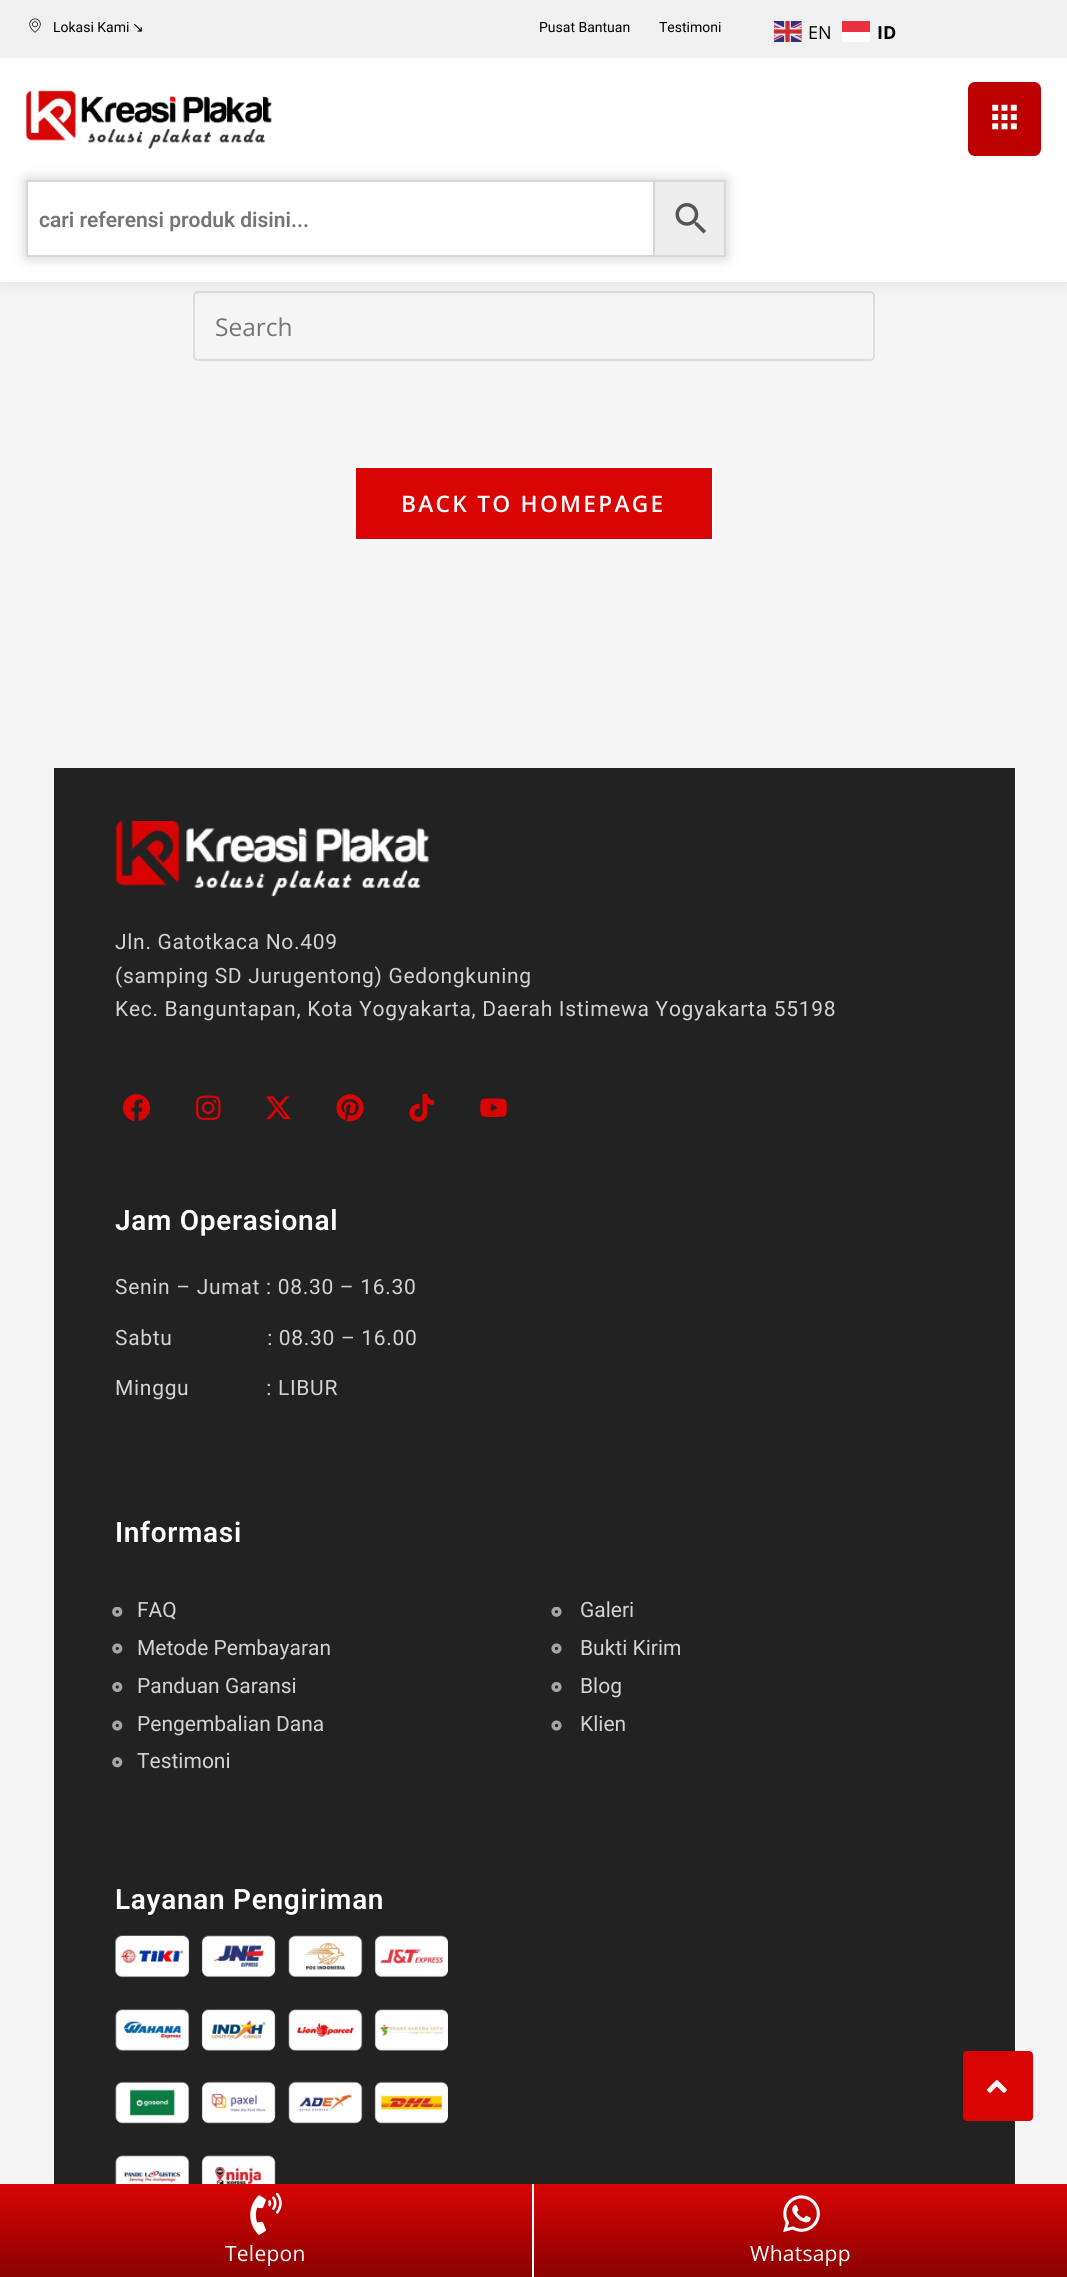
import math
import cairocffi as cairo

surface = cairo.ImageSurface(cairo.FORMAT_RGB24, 1067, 2277)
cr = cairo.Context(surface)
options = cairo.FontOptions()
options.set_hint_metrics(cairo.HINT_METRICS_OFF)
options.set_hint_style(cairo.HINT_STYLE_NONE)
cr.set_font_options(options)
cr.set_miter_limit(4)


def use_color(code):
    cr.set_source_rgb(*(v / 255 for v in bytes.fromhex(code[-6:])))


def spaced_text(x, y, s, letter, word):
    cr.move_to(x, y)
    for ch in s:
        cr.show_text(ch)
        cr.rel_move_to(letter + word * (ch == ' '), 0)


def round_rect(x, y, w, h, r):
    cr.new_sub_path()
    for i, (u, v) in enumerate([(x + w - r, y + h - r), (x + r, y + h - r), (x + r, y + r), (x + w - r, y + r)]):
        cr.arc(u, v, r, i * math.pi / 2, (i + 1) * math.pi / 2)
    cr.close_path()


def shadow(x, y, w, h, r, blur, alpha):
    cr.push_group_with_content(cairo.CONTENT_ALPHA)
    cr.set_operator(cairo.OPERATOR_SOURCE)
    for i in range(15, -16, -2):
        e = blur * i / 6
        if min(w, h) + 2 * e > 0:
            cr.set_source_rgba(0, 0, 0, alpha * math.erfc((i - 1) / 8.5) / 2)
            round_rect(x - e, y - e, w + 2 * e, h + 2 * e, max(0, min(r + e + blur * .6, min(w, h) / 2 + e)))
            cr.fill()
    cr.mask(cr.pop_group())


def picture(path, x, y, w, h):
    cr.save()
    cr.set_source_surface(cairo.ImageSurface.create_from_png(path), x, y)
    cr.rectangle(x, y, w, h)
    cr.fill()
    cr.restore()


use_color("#f5f5f5")
cr.paint()
round_rect(194, 292, 680, 68, 4)
use_color("#dddddd")
cr.stroke()
use_color("#000000")
shadow(0, 2, 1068, 282, 0, 9, 0.08)
use_color("#f0f0f0")
cr.rectangle(0, 0, 1067, 58)
cr.fill()
picture("img1.png", 29, 18, 12, 15)
cr.select_font_face("Roboto")
cr.set_font_size(14)
use_color("#000000")
cr.move_to(53, 32)
cr.show_text("Lokasi Kami")
cr.select_font_face("DejaVu Sans")
cr.move_to(132, 32)
cr.show_text("↘")
cr.select_font_face("Roboto")
cr.move_to(539, 32)
cr.show_text("Pusat Bantuan")
cr.move_to(659, 32)
cr.show_text("Testimoni")
picture("img2.png", 774, 21, 28, 21)
cr.select_font_face("Open Sans")
cr.set_font_size(18)
cr.move_to(808, 39)
cr.show_text("EN")
cr.select_font_face("Open Sans", cairo.FONT_SLANT_NORMAL, cairo.FONT_WEIGHT_BOLD)
cr.move_to(877, 39)
cr.show_text("ID")
use_color("#e9303e")
cr.rectangle(842, 21, 28, 11)
cr.fill()
use_color("#fcfcfc")
cr.rectangle(842, 32, 28, 10)
cr.fill()
use_color("#ffffff")
cr.rectangle(0, 58, 1067, 224)
cr.fill()
picture("img3.png", 26, 90, 246, 59)
use_color("#bd0000")
round_rect(968, 82, 73, 74, 7)
cr.fill()
picture("img4.png", 992, 104, 25, 26)
cr.save()
cr.set_fill_rule(cairo.FILL_RULE_EVEN_ODD)
cr.new_path()
cr.move_to(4, 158)
cr.line_to(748, 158)
cr.line_to(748, 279)
cr.line_to(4, 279)
cr.close_path()
cr.move_to(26, 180)
cr.line_to(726, 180)
cr.line_to(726, 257)
cr.line_to(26, 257)
cr.close_path()
cr.clip()
use_color("#000000")
shadow(26, 180, 700, 77, 0, 7, 0.2)
cr.restore()
use_color("#ededed")
cr.rectangle(654, 181, 71, 75)
cr.fill_preserve()
use_color("#d8d8d8")
cr.stroke()
cr.rectangle(27, 181, 627, 75)
cr.stroke()
cr.select_font_face("Roboto SemiBold")
cr.set_font_size(21)
use_color("#757575")
cr.move_to(39, 227)
cr.show_text("cari referensi produk disini...")
picture("img5.png", 675, 203, 31, 31)
cr.select_font_face("Open Sans")
cr.set_font_size(24.5)
cr.move_to(215, 336)
cr.show_text("Search")
use_color("#d90404")
cr.rectangle(355, 467, 358, 73)
cr.fill_preserve()
use_color("#ffffff")
cr.stroke()
cr.select_font_face("Open Sans SemiBold")
cr.set_font_size(22.75)
spaced_text(401, 512, "BACK TO HOMEPAGE", 2.25, 0)
use_color("#222222")
cr.rectangle(54, 768, 961, 1416)
cr.fill()
picture("img6.png", 115, 821, 314, 76)
cr.select_font_face("Roboto")
cr.set_font_size(21)
use_color("#d3d3d3")
spaced_text(115, 949, "Jln. Gatotkaca No.409", 0.7, 0)
spaced_text(115, 983, "(samping SD Jurugentong) Gedongkuning", 0.7, 0)
spaced_text(115, 1016, "Kec. Banguntapan, Kota Yogyakarta, Daerah Istimewa Yogyakarta 55198", 0.7, 0)
picture("img7.png", 123, 1094, 28, 28)
picture("img8.png", 196, 1095, 25, 25)
picture("img9.png", 265, 1096, 26, 24)
picture("img10.png", 336, 1094, 28, 28)
picture("img11.png", 409, 1094, 25, 28)
picture("img12.png", 480, 1098, 27, 20)
cr.select_font_face("Roboto SemiBold")
cr.set_font_size(28)
use_color("#ffffff")
spaced_text(115, 1230, "Jam Operasional", 0.7, 0)
cr.select_font_face("Roboto")
cr.set_font_size(21)
use_color("#d3d3d3")
spaced_text(115, 1294, "Senin – Jumat : 08.30 – 16.30", 0.7, 0)
spaced_text(115, 1345, "Sabtu                : 08.30 – 16.00", 0.7, 0)
spaced_text(115, 1395, "Minggu             : LIBUR", 0.7, 0)
cr.select_font_face("Roboto SemiBold")
cr.set_font_size(28)
use_color("#ffffff")
spaced_text(115, 1542, "Informasi", 0.7, 0)
picture("img13.png", 112, 1607, 11, 10)
cr.select_font_face("Roboto")
cr.set_font_size(21)
use_color("#d3d3d3")
cr.move_to(137, 1617)
cr.show_text("FAQ")
picture("img14.png", 112, 1643, 11, 11)
cr.move_to(137, 1655)
cr.show_text("Metode Pembayaran")
picture("img15.png", 112, 1682, 11, 10)
cr.move_to(137, 1693)
cr.show_text("Panduan Garansi")
picture("img14.png", 112, 1720, 11, 11)
cr.move_to(137, 1731)
cr.show_text("Pengembalian Dana")
picture("img16.png", 112, 1757, 11, 11)
cr.move_to(137, 1768)
cr.show_text("Testimoni")
picture("img17.png", 551, 1607, 11, 10)
cr.move_to(580, 1617)
cr.show_text("Galeri")
picture("img18.png", 551, 1643, 11, 11)
cr.move_to(580, 1655)
cr.show_text("Bukti Kirim")
picture("img19.png", 551, 1682, 11, 10)
cr.move_to(580, 1693)
cr.show_text("Blog")
picture("img18.png", 551, 1720, 11, 11)
cr.move_to(580, 1731)
cr.show_text("Klien")
cr.select_font_face("Roboto SemiBold")
cr.set_font_size(28)
use_color("#ffffff")
spaced_text(115, 1909, "Layanan Pengiriman", 0.7, 0)
picture("img20.png", 115, 1935, 333, 249)
gradient = cairo.LinearGradient(534, 2184, 534, 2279)
gradient.add_color_stop_rgba(0, 0.851, 0.016, 0.016, 1)
gradient.add_color_stop_rgba(0.93, 0.561, 0.008, 0.008, 1)
cr.set_source(gradient)
cr.rectangle(0, 2184, 1067, 93)
cr.fill()
use_color("#ffffff")
cr.rectangle(532, 2184, 2, 93)
cr.fill()
picture("img21.png", 250, 2193, 32, 42)
cr.select_font_face("Open Sans")
cr.set_font_size(21)
spaced_text(225, 2261, "Telepon", 0.25, 0)
picture("img22.png", 783, 2195, 37, 38)
spaced_text(750, 2261, "Whatsapp", 0.25, 0)
use_color("#d90404")
round_rect(963, 2051, 70, 70, 4)
cr.fill()
picture("img23.png", 987, 2080, 20, 13)
surface.write_to_png("result.png")
